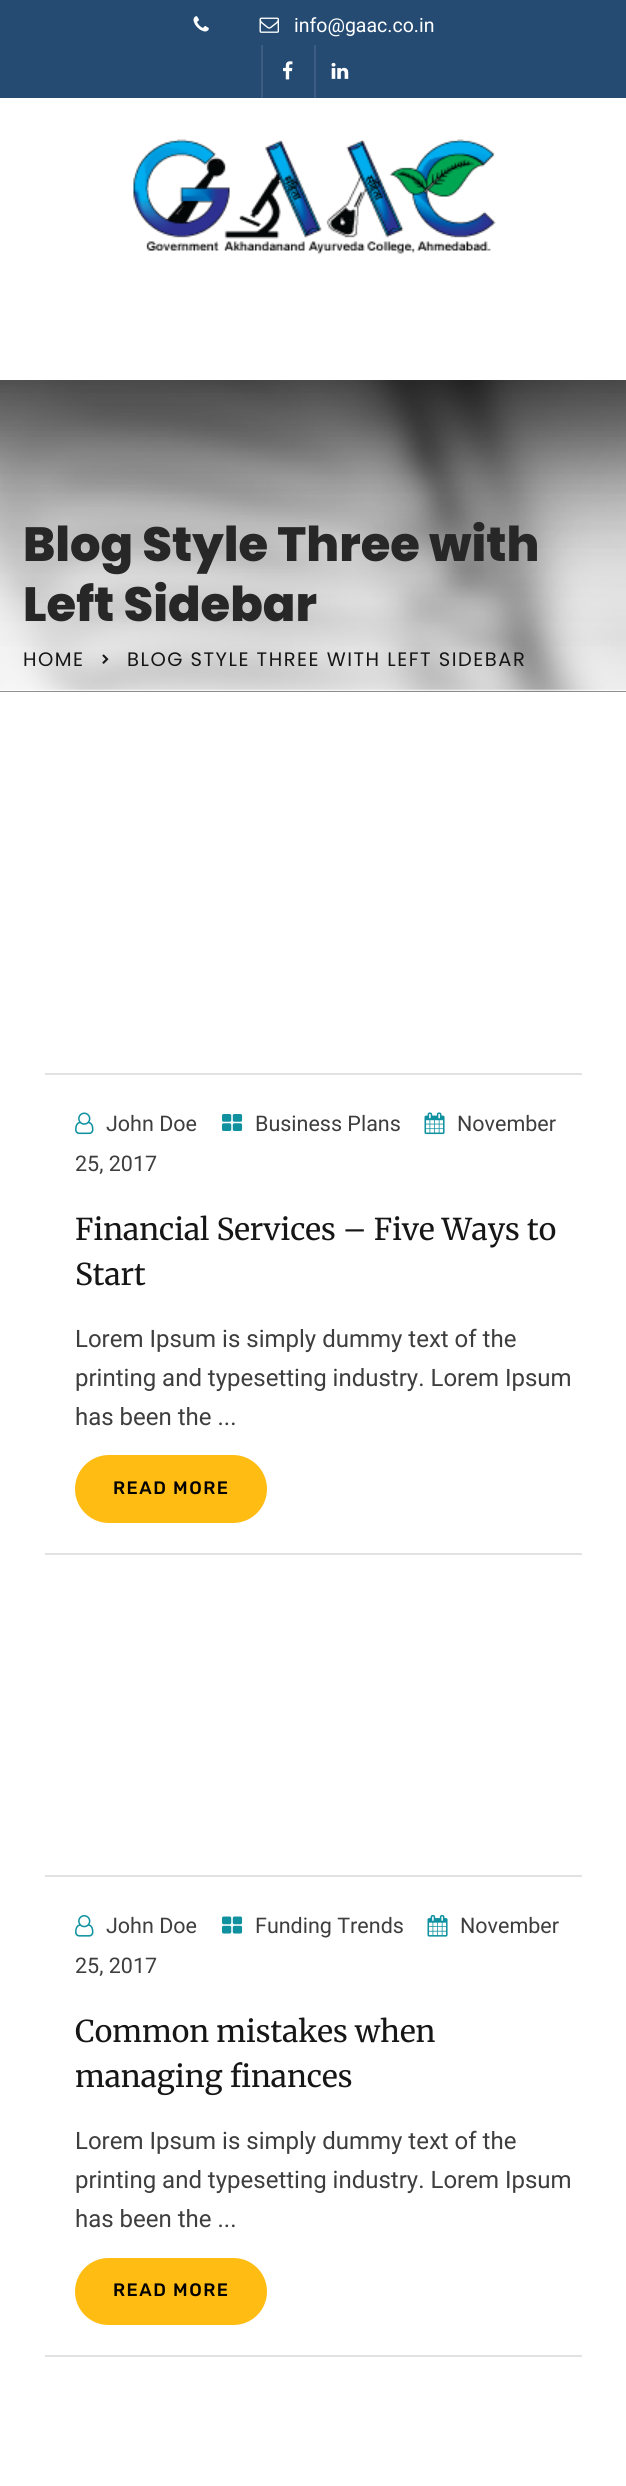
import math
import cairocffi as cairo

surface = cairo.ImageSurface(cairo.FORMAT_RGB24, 626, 2486)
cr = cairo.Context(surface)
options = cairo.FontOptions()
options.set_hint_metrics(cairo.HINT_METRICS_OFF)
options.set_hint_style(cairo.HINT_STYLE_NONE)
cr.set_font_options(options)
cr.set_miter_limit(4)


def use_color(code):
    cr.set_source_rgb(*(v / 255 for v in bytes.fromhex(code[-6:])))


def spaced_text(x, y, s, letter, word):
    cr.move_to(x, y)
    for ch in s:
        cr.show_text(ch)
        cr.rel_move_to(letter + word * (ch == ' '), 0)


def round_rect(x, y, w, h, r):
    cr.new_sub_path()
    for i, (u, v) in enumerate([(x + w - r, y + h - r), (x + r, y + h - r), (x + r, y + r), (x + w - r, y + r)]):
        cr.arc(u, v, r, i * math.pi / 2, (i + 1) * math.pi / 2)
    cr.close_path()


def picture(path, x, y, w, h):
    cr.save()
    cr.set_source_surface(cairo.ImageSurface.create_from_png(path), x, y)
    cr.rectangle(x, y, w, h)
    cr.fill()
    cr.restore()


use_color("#ffffff")
cr.paint()
use_color("#264b73")
cr.rectangle(0, 0, 626, 98)
cr.fill()
picture("img1.png", 193, 16, 16, 16)
picture("img2.png", 259, 17, 20, 16)
cr.select_font_face("Roboto")
cr.set_font_size(19.5)
use_color("#ffffff")
cr.move_to(294, 32)
cr.show_text("info@gaac.co.in")
use_color("#3c5d81")
cr.rectangle(261, 45, 2, 53)
cr.fill()
picture("img3.png", 283, 61, 10, 19)
cr.rectangle(314, 45, 2, 53)
cr.fill()
picture("img4.png", 331, 62, 18, 17)
picture("img5.png", 133, 139, 363, 115)
use_color("#252525")
cr.rectangle(0, 691, 626, 1)
cr.fill()
picture("img6.png", 0, 380, 626, 312)
cr.select_font_face("Poppins ExtraBold")
cr.set_font_size(48)
use_color("#272727")
cr.move_to(23, 561)
cr.show_text("Blog Style Three with")
cr.move_to(23, 621)
cr.show_text("Left Sidebar")
cr.select_font_face("Poppins")
cr.set_font_size(19.5)
use_color("#161616")
spaced_text(23, 666, "HOME", 1.5, 0)
picture("img7.png", 102, 654, 7, 10)
spaced_text(127, 666, "BLOG STYLE THREE WITH LEFT SIDEBAR", 1.5, 0)
use_color("#e2e2e2")
cr.rectangle(45, 1073, 537, 2)
cr.fill()
cr.rectangle(45, 1553, 537, 2)
cr.fill()
picture("img8.png", 424, 1112, 21, 23)
cr.select_font_face("Roboto")
cr.set_font_size(21.5)
use_color("#3e3e3e")
cr.move_to(457, 1131)
cr.show_text("November")
cr.move_to(75, 1171)
cr.show_text("25, 2017")
picture("img9.png", 75, 1112, 19, 23)
cr.move_to(106, 1131)
cr.show_text("John Doe")
picture("img10.png", 222, 1114, 21, 17)
cr.move_to(255, 1131)
cr.show_text("Business Plans")
cr.select_font_face("Merriweather")
cr.set_font_size(30)
use_color("#161616")
cr.move_to(75, 1240)
cr.show_text("Financial Services – Five Ways to")
cr.move_to(75, 1285)
cr.show_text("Start")
cr.select_font_face("Roboto")
cr.set_font_size(24)
use_color("#3e3e3e")
cr.move_to(75, 1347)
cr.show_text("Lorem Ipsum is simply dummy text of the")
cr.move_to(75, 1386)
cr.show_text("printing and typesetting industry. Lorem Ipsum")
cr.move_to(75, 1425)
cr.show_text("has been the ...")
use_color("#ffbc13")
round_rect(75, 1455, 192, 68, 34)
cr.fill()
cr.select_font_face("Rubik Medium")
cr.set_font_size(18)
use_color("#000000")
spaced_text(113, 1494, "READ MORE", 1.5, 0)
use_color("#e2e2e2")
cr.rectangle(45, 1875, 537, 2)
cr.fill()
cr.rectangle(45, 2355, 537, 2)
cr.fill()
picture("img11.png", 427, 1915, 21, 22)
cr.select_font_face("Roboto")
cr.set_font_size(21.5)
use_color("#3e3e3e")
cr.move_to(460, 1933)
cr.show_text("November")
cr.move_to(75, 1973)
cr.show_text("25, 2017")
picture("img12.png", 75, 1915, 19, 22)
cr.move_to(106, 1933)
cr.show_text("John Doe")
picture("img13.png", 222, 1916, 21, 18)
cr.move_to(255, 1933)
cr.show_text("Funding Trends")
cr.select_font_face("Merriweather")
cr.set_font_size(30)
use_color("#161616")
cr.move_to(75, 2042)
cr.show_text("Common mistakes when")
cr.move_to(75, 2087)
cr.show_text("managing finances")
cr.select_font_face("Roboto")
cr.set_font_size(24)
use_color("#3e3e3e")
cr.move_to(75, 2149)
cr.show_text("Lorem Ipsum is simply dummy text of the")
cr.move_to(75, 2188)
cr.show_text("printing and typesetting industry. Lorem Ipsum")
cr.move_to(75, 2227)
cr.show_text("has been the ...")
use_color("#ffbc13")
round_rect(75, 2258, 192, 67, 33.5)
cr.fill()
cr.select_font_face("Rubik Medium")
cr.set_font_size(18)
use_color("#000000")
spaced_text(113, 2296, "READ MORE", 1.5, 0)
surface.write_to_png("result.png")
